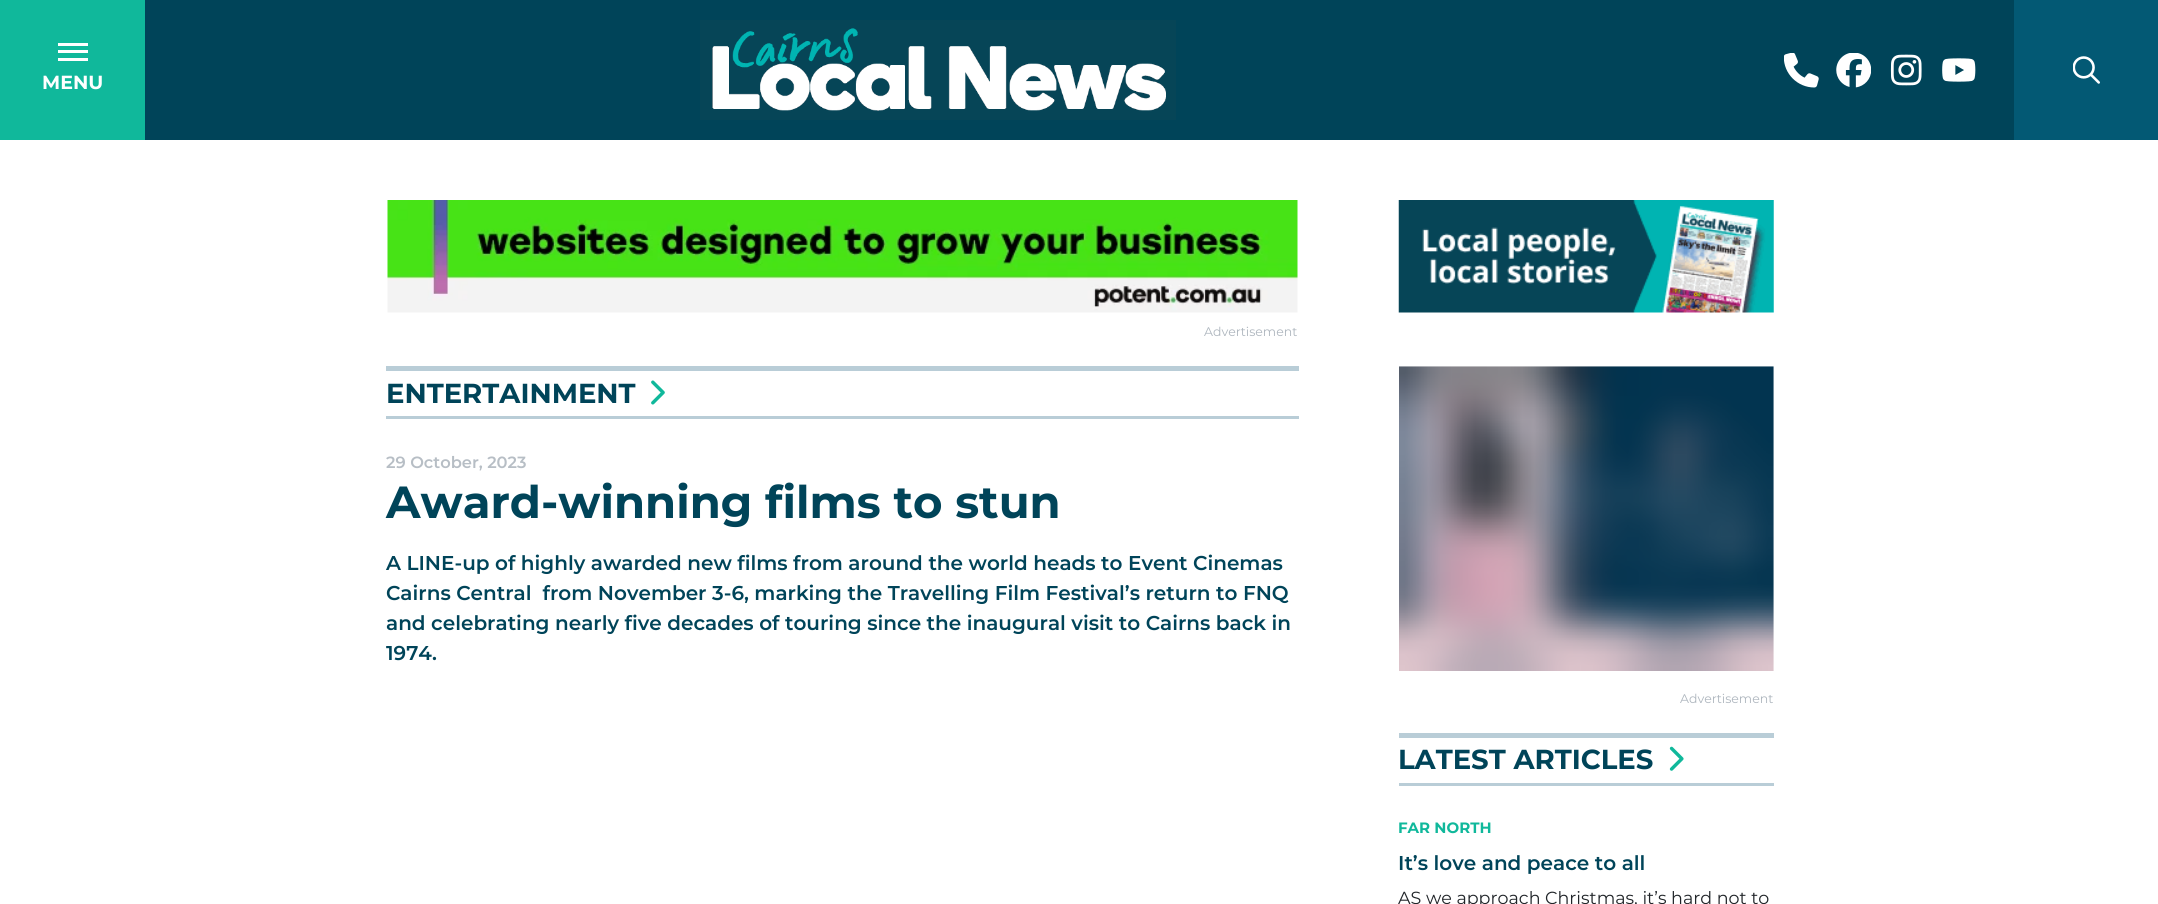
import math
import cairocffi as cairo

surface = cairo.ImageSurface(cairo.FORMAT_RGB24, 2158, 904)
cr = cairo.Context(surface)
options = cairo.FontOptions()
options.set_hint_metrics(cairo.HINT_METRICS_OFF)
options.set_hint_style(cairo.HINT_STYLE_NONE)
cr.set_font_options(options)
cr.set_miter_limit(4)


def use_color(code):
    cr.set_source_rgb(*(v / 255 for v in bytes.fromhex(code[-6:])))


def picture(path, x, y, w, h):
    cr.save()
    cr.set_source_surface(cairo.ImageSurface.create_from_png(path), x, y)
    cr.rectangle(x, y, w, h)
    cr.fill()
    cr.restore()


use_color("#ffffff")
cr.paint()
use_color("#004459")
cr.rectangle(145, 0, 1869, 140)
cr.fill()
use_color("#10b89b")
cr.rectangle(0, 0, 145, 140)
cr.fill()
use_color("#ffffff")
cr.rectangle(58, 43, 30, 3)
cr.fill()
cr.rectangle(58, 50, 30, 3)
cr.fill()
cr.rectangle(58, 58, 30, 3)
cr.fill()
cr.select_font_face("Montserrat", cairo.FONT_SLANT_NORMAL, cairo.FONT_WEIGHT_BOLD)
cr.set_font_size(19)
cr.move_to(42, 89)
cr.show_text("MENU")
picture("img1.png", 700, 20, 476, 100)
picture("img2.png", 1784, 53, 35, 35)
picture("img3.png", 1836, 53, 35, 35)
picture("img4.png", 1890, 54, 32, 32)
picture("img5.png", 1942, 58, 34, 24)
use_color("#035974")
cr.rectangle(2014, 0, 144, 140)
cr.fill()
picture("img6.png", 2073, 56, 27, 28)
picture("img7.png", 1398, 200, 376, 113)
picture("img8.png", 387, 200, 911, 113)
cr.select_font_face("Montserrat")
cr.set_font_size(12.5)
use_color("#adb5bd")
cr.move_to(1204, 336)
cr.show_text("Advertisement")
use_color("#b9cdd7")
cr.rectangle(386, 366, 913, 5)
cr.fill()
cr.rectangle(386, 416, 913, 3)
cr.fill()
cr.select_font_face("Montserrat", cairo.FONT_SLANT_NORMAL, cairo.FONT_WEIGHT_BOLD)
cr.set_font_size(27.5)
use_color("#004459")
cr.move_to(386, 403)
cr.show_text("ENTERTAINMENT")
picture("img9.png", 651, 380, 14, 25)
cr.select_font_face("Montserrat SemiBold")
cr.set_font_size(16.25)
use_color("#b7bec5")
cr.move_to(386, 468)
cr.show_text("29 October, 2023")
cr.select_font_face("Montserrat", cairo.FONT_SLANT_NORMAL, cairo.FONT_WEIGHT_BOLD)
cr.set_font_size(45)
use_color("#004459")
cr.move_to(386, 518)
cr.show_text("Award-winning films to stun")
cr.select_font_face("Montserrat SemiBold")
cr.set_font_size(20)
cr.move_to(386, 570)
cr.show_text("A LINE-up of highly awarded new films from around the world heads to Event Cinemas")
cr.move_to(386, 600)
cr.show_text("Cairns Central  from November 3-6, marking the Travelling Film Festival’s return to FNQ")
cr.move_to(386, 630)
cr.show_text("and celebrating nearly five decades of touring since the inaugural visit to Cairns back in")
cr.move_to(386, 660)
cr.show_text("1974.")
picture("img10.png", 1399, 366, 375, 305)
cr.select_font_face("Montserrat")
cr.set_font_size(12.5)
use_color("#adb5bd")
cr.move_to(1680, 703)
cr.show_text("Advertisement")
use_color("#b9cdd7")
cr.rectangle(1399, 733, 375, 5)
cr.fill()
cr.rectangle(1399, 783, 375, 3)
cr.fill()
cr.select_font_face("Montserrat", cairo.FONT_SLANT_NORMAL, cairo.FONT_WEIGHT_BOLD)
cr.set_font_size(27.5)
use_color("#004459")
cr.move_to(1398, 769)
cr.show_text("LATEST ARTICLES")
picture("img11.png", 1669, 746, 15, 25)
cr.set_font_size(15)
use_color("#10b89b")
cr.move_to(1398, 833)
cr.show_text("FAR NORTH")
cr.select_font_face("Montserrat SemiBold")
cr.set_font_size(20)
use_color("#004459")
cr.move_to(1398, 870)
cr.show_text("It’s love and peace to all")
cr.select_font_face("Montserrat")
cr.set_font_size(17.5)
use_color("#212529")
cr.move_to(1398, 904)
cr.show_text("AS we approach Christmas, it’s hard not to")
surface.write_to_png("result.png")
